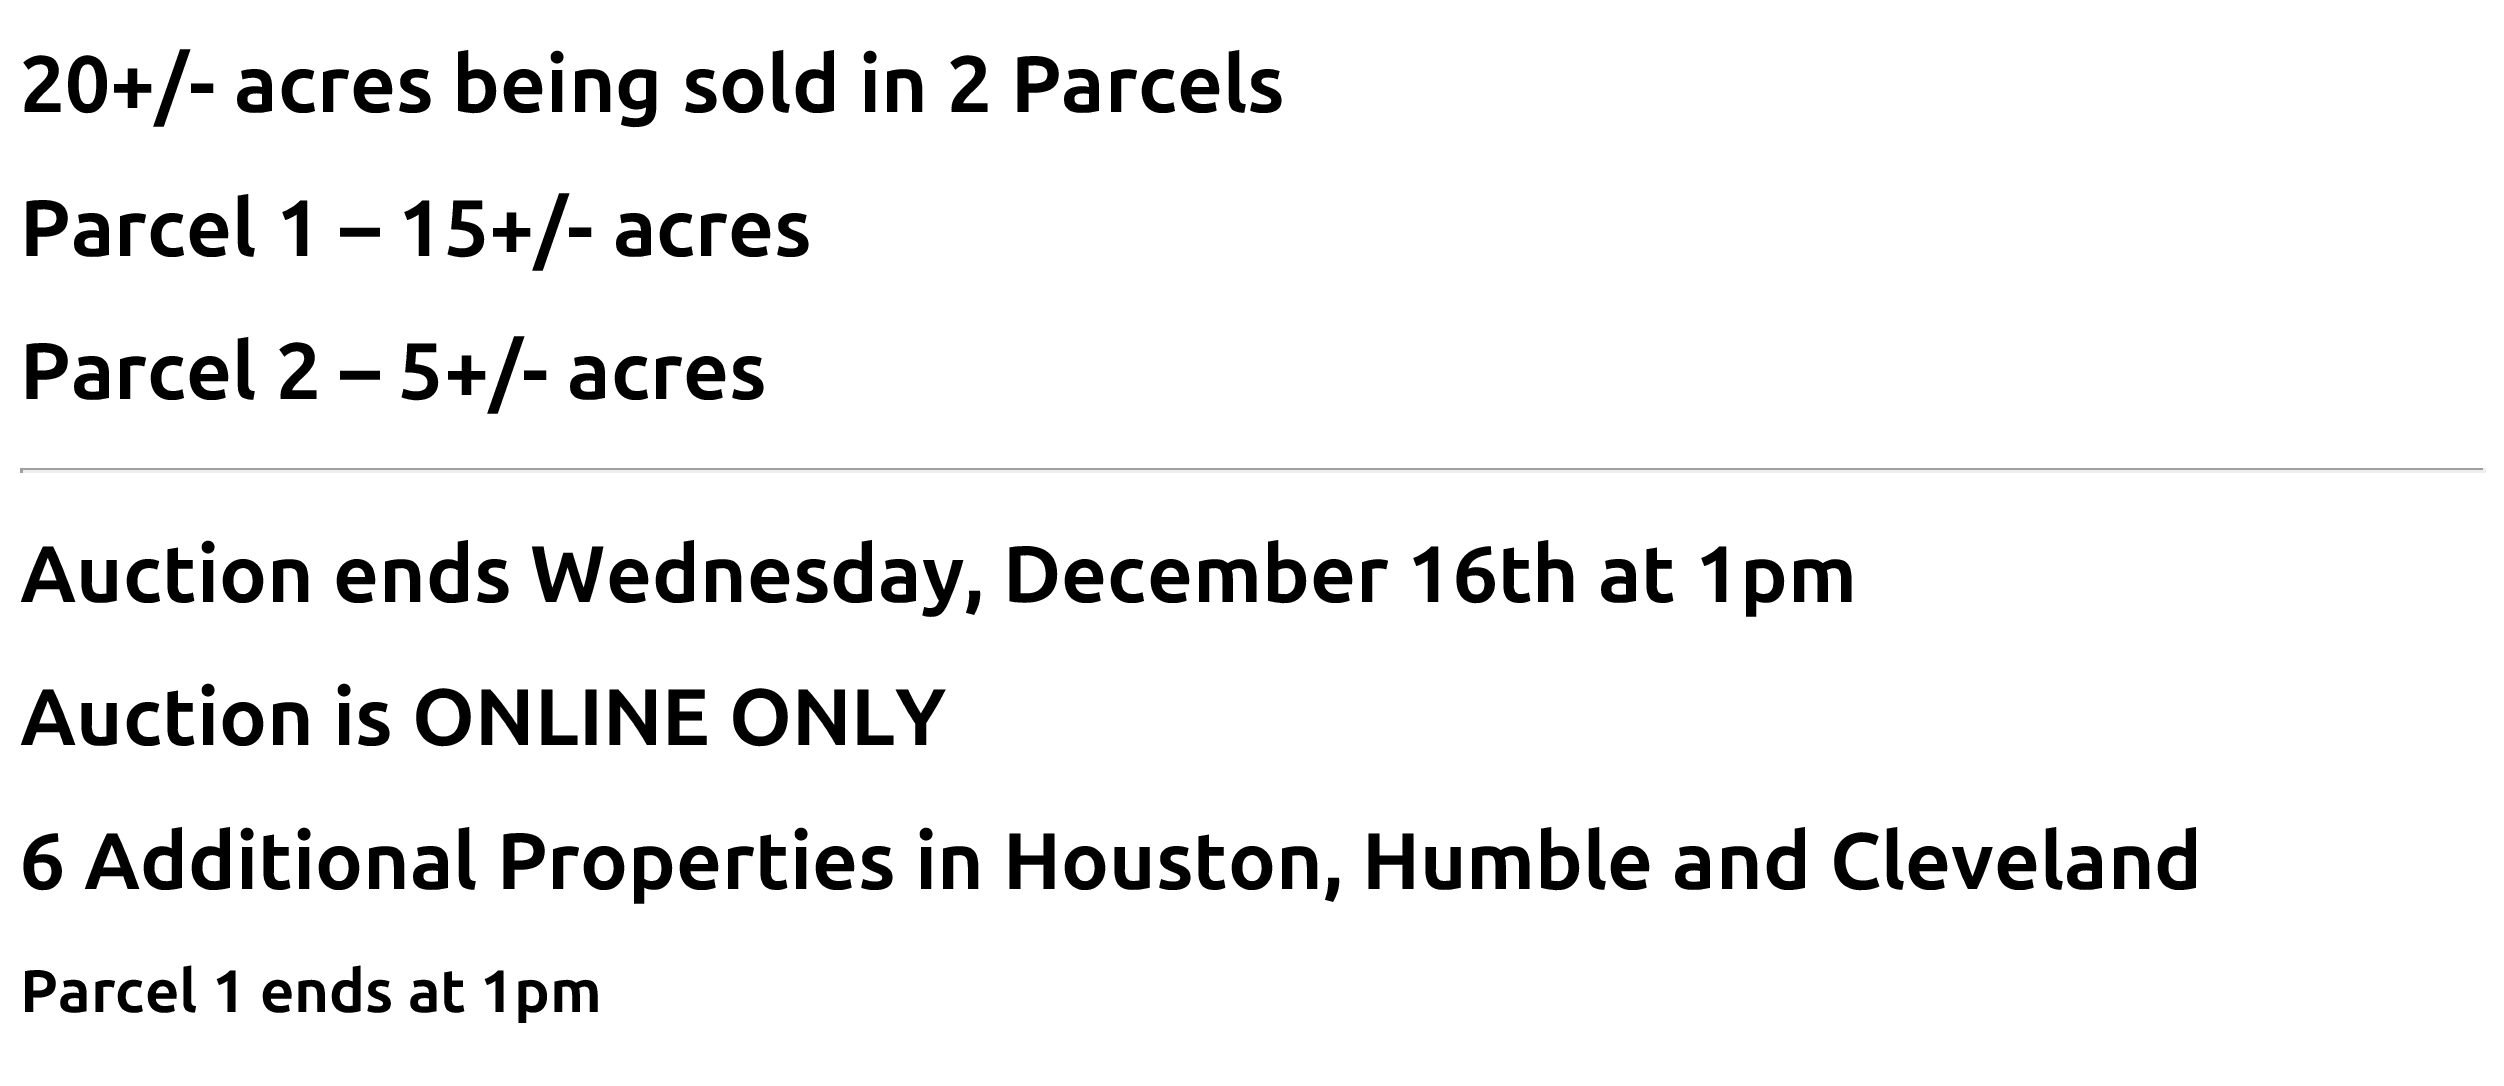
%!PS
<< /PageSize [2504 1086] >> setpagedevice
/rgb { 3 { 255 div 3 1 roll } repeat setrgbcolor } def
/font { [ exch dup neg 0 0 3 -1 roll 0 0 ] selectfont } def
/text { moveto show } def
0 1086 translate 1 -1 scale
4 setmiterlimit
255 255 255 rgb
0 0 2504 1086 rectfill
159 159 159 rgb
20 468 2465 2 rectfill
238 238 238 rgb
2483 468 3 5 rectfill
20 470 2465 3 rectfill
159 159 159 rgb
20 468 3 5 rectfill
/Ubuntu-Bold 80 font
0 0 0 rgb
(20+/- acres being sold in 2 Parcels) 20 112 text
(Parcel 1 – 15+/- acres) 20 256 text
(Parcel 2 – 5+/- acres) 20 399 text
(Auction ends Wednesday, December 16th at 1pm) 20 602 text
(Auction is ONLINE ONLY) 20 745 text
(6 Additional Properties in Houston, Humble and Cleveland) 20 889 text
/Ubuntu-Bold 60 font
(Parcel 1 ends at 1pm) 20 1012 text
showpage
